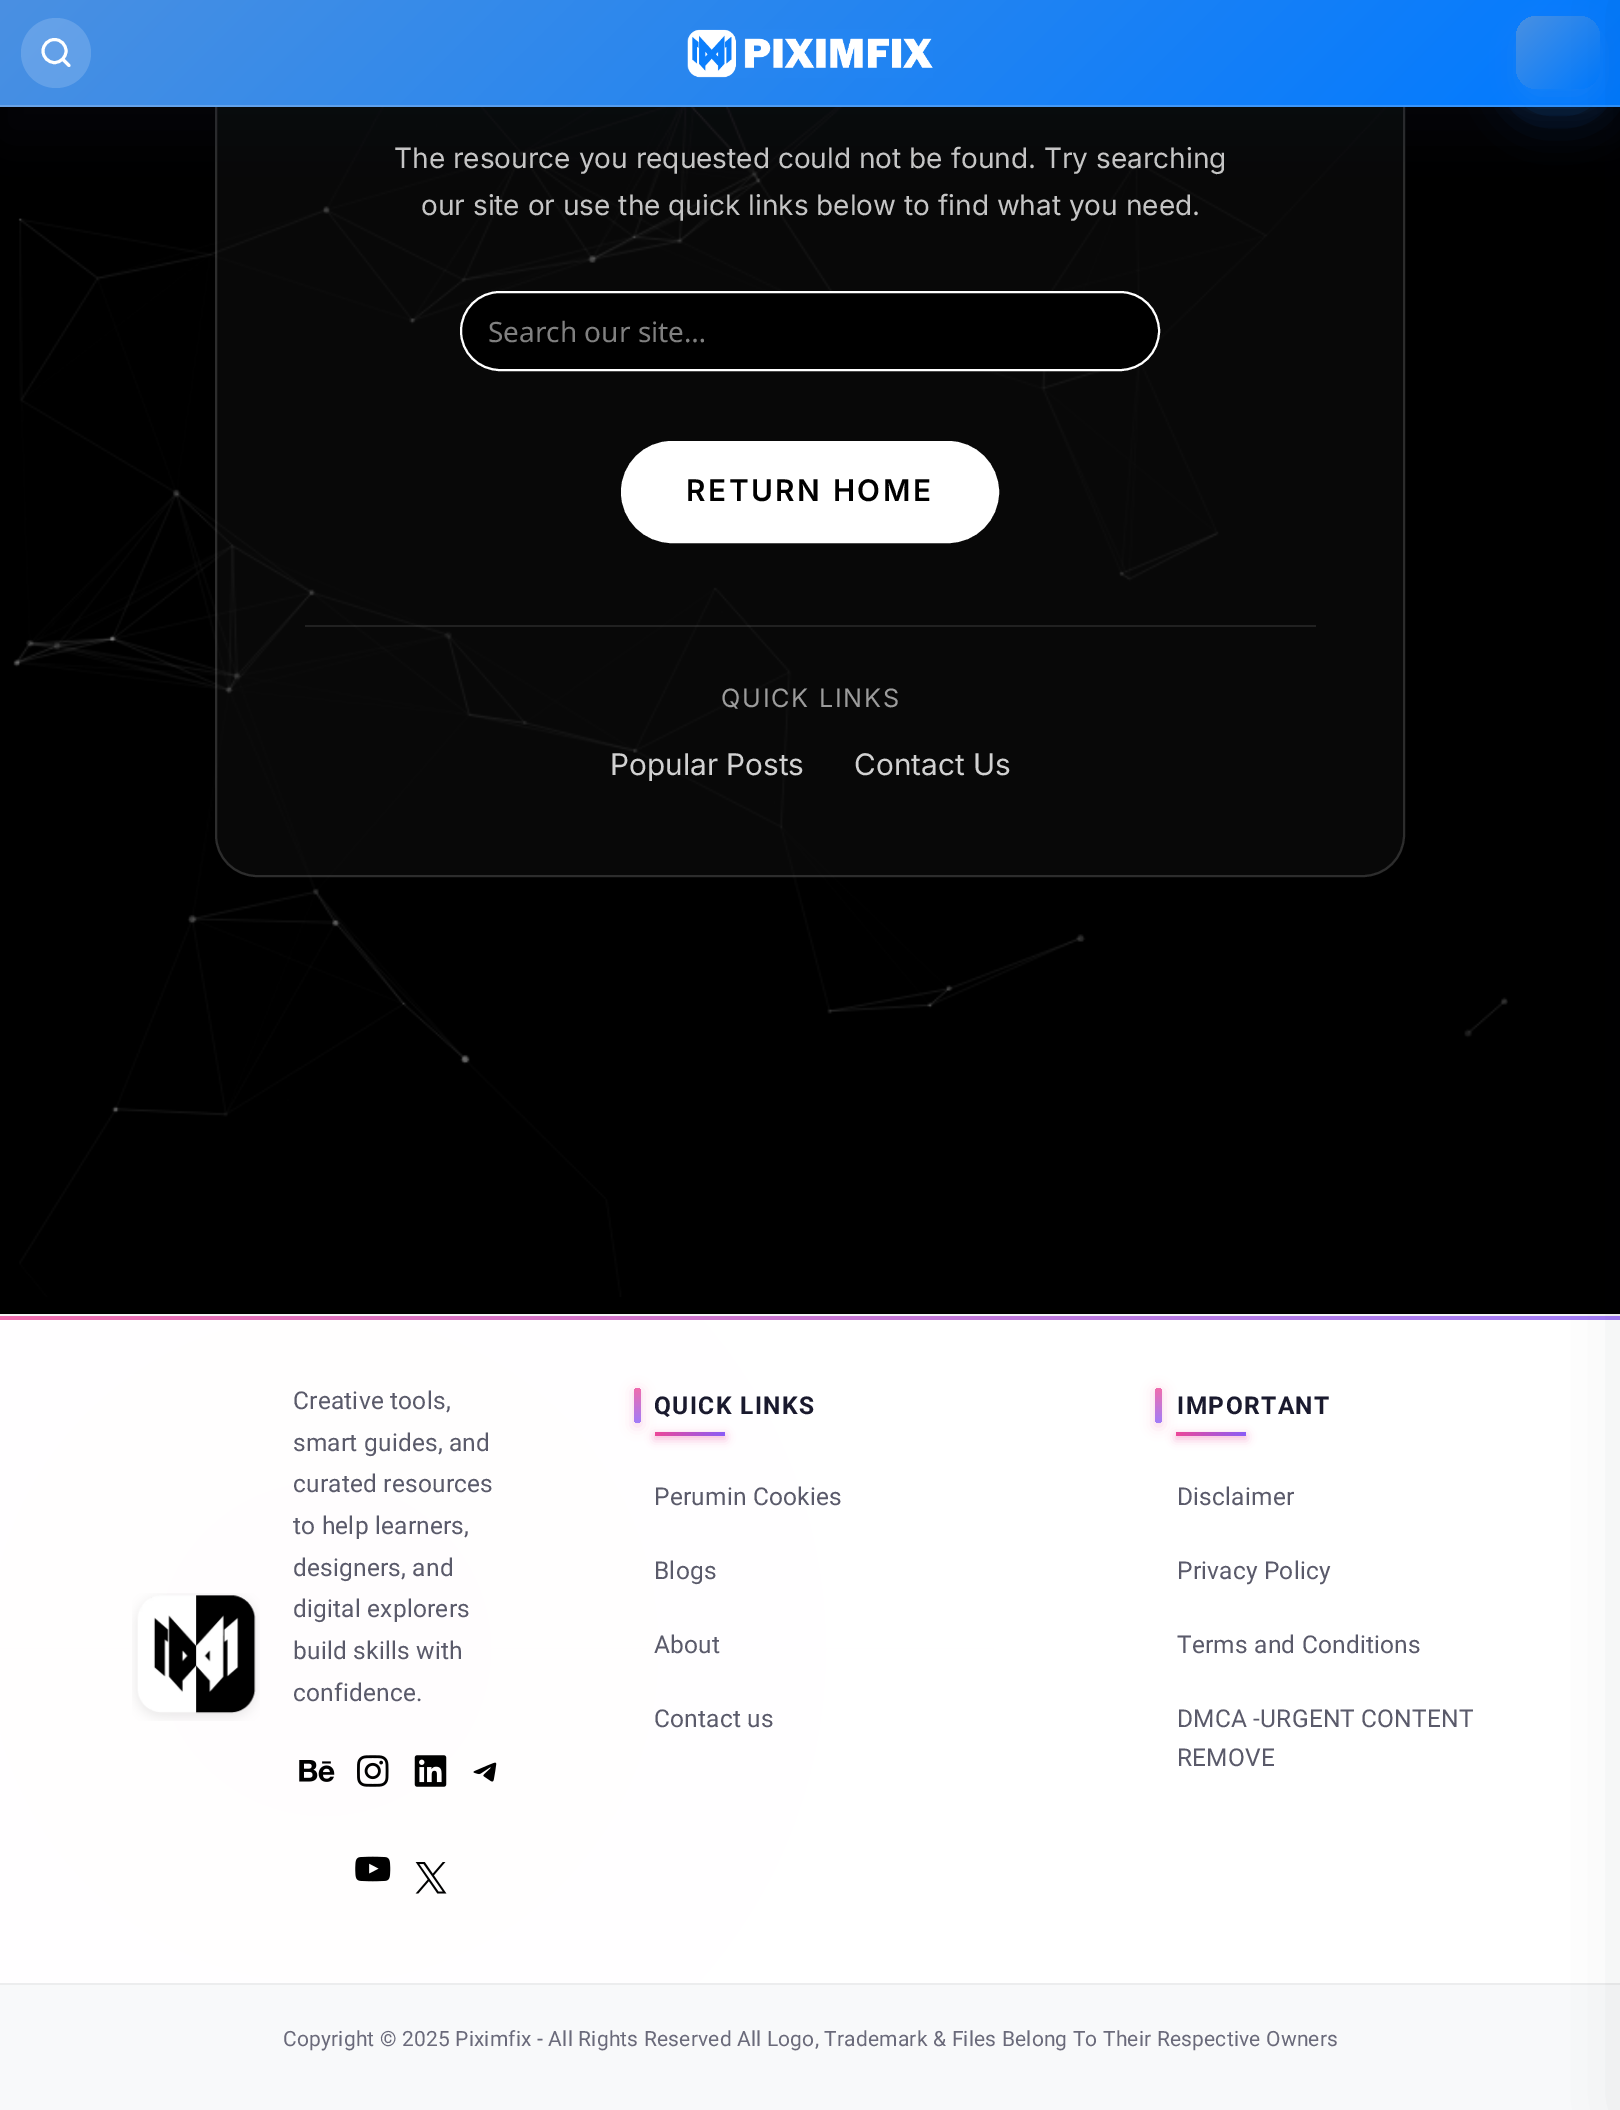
%!PS
<< /PageSize [1620 2110] /PageUsesTransparency true >> setpagedevice
/rgb { 3 { 255 div 3 1 roll } repeat setrgbcolor } def
/font { [ exch dup neg 0 0 3 -1 roll 0 0 ] selectfont } def
/text { moveto show } def
/alpha { dup .setfillconstantalpha .setstrokeconstantalpha } def
/circle { newpath 0 360 arc closepath } def
/roundrect { 5 dict begin { /r /h /w /y /x } { exch def } forall
  x r add y moveto x w add y 2 copy h add r arct x w add y h add x 1 index r arct
  x y h add x y r arct x y 2 copy exch w add exch r arct closepath end } def
/shadow { 12 dict begin { /a /b /q /h /w /y /x } { exch def } forall gsave /was 0 def
  9 -2 -9 { dup b mul 4 div /e exch def 1 sub .425 mul 2.718 exch exp 1 add a .99 .min exch div /now exch def
    1 1 now sub 1 was sub div sub alpha /was now def
    w h .min e 2 mul add 0 gt { x e sub y e sub w e 2 mul add h e 2 mul add
      q e add b .6 mul add w h .min 2 div e add .min 0 .max roundrect fill } if } for grestore end } def
/picture { 5 dict begin { /h /w /y /x /name } { exch def } forall
  gsave x y translate w h scale
  w h 8 [w 0 0 h 0 0] name (r) file false 3 colorimage grestore end } def
0 .pushpdf14devicefilter
0 2110 translate 1 -1 scale
4 setmiterlimit
0 0 0 rgb
0 0 1620 2110 rectfill
(img_02.rgb) 13 107 1495 1190 picture
gsave
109 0 moveto 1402 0 rlineto 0 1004 rlineto -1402 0 rlineto closepath 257 -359 moveto 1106 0 rlineto 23 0 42 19 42 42 rcurveto 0 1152 rlineto 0 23 -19 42 -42 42 rcurveto -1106 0 rlineto -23 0 -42 -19 -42 -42 rcurveto 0 -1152 rlineto 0 -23 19 -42 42 -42 rcurveto closepath eoclip newpath
215 -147 1190 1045 42 35 0.4 shadow
grestore
0.4 alpha
20 20 20 rgb
215 -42 1190 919 42 roundrect fill
0.15 alpha
255 255 255 rgb
2 setlinewidth
216 -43 1188 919 41 roundrect stroke
1 alpha
15 23 36 rgb
0 32 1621 106 0 31.5 0.24 shadow
gsave 0 0 moveto 1620 0 rlineto 0 105 rlineto -1620 0 rlineto closepath clip newpath
<< /ShadingType 2 /ColorSpace /DeviceRGB /Coords [379 -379 1242 484] /Extend [true true] /Function << /FunctionType 2 /Domain [0 1] /C0 [0.29 0.565 0.886] /C1 [0 0.478 1] /N 1 >> >> shfill grestore
gsave 0 105 moveto 1620 0 rlineto 0 2 rlineto -1620 0 rlineto closepath clip newpath
<< /ShadingType 2 /ColorSpace /DeviceRGB /Coords [379 -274 1242 589] /Extend [true true] /Function << /FunctionType 2 /Domain [0 1] /C0 [0.29 0.565 0.886] /C1 [0 0.478 1] /N 1 >> >> shfill grestore
0.18 alpha
255 255 255 rgb
0 105 1620 2 rectfill
1 alpha
74 144 226 rgb
1516 26 84 74 21 12 0.25 shadow
0 122 255 rgb
1516 37 84 73 21 24.5 0.3 shadow
gsave 1516 16 84 73 21 roundrect clip newpath
<< /ShadingType 2 /ColorSpace /DeviceRGB /Coords [1518 13 1597 92] /Extend [true true] /Function << /FunctionType 2 /Domain [0 1] /C0 [0.29 0.565 0.886] /C1 [0 0.478 1] /N 1 >> >> shfill grestore
0.16 alpha
255 255 255 rgb
56 53 35 circle fill
1 alpha
2.9 setlinewidth
54.5 51 11.5 circle stroke
1 setlinecap
1 setlinejoin
69 65.5 moveto -6 -6 rlineto stroke
(img_01.rgb) 687 29 246 49 picture
242 242 242 rgb
0 1314 1620 2 rectfill
gsave 0 1316 moveto 1620 0 rlineto 0 4 rlineto -1620 0 rlineto closepath clip newpath
<< /ShadingType 2 /ColorSpace /DeviceRGB /Coords [0 1318 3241 1318] /Extend [true true] /Function << /FunctionType 3 /Domain [0 1] /Functions [<< /FunctionType 2 /Domain [0 1] /C0 [0.941 0.427 0.678] /C1 [0.635 0.49 0.973] /N 1 >> << /FunctionType 2 /Domain [0 1] /C0 [0.635 0.49 0.973] /C1 [0.941 0.427 0.678] /N 1 >>] /Bounds [0.5] /Encode [0 1 0 1] >> >> shfill grestore
gsave 0 1320 moveto 1620 0 rlineto 0 663 rlineto -1620 0 rlineto closepath clip newpath 324 1649 translate 1339 1339 scale
<< /ShadingType 3 /ColorSpace /DeviceRGB /Coords [0 0 0 0 0 1] /Extend [true true] /Function << /FunctionType 3 /Domain [0 1] /Functions [<< /FunctionType 2 /Domain [0 1] /C0 [1 0.992 0.996] /C1 [1 1 1] /N 1 >> << /FunctionType 2 /Domain [0 1] /C0 [1 1 1] /C1 [1 1 1] /N 1 >>] /Bounds [0.5] /Encode [0 1 0 1] >> >> shfill grestore
248 249 250 rgb
0 1985 1620 125 rectfill
236 237 238 rgb
0 1983 1620 2 rectfill
15 23 36 rgb
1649 0 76 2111 0 35 0.24 shadow
0 0 0 rgb
461 292 698 78 39 roundrect gsave fill grestore
255 255 255 rgb
2 setlinewidth
0 setlinecap
0 setlinejoin
stroke
623 443 374 98 49 roundrect gsave fill grestore
4 setlinewidth
stroke
0.1 alpha
305 625 1011 2 rectfill
1 alpha
(img_03.rgb) 132 1593 128 128 picture
(img_04.rgb) 299 1760 36 22 picture
(img_05.rgb) 357 1755 32 32 picture
(img_06.rgb) 414 1755 33 32 picture
(img_07.rgb) 473 1762 24 20 picture
(img_08.rgb) 355 1856 36 26 picture
(img_09.rgb) 415 1862 32 32 picture
236 72 153 rgb
634 1391 7 35 3.5 7 0.24 shadow
gsave 634 1388 7 35 3.5 roundrect clip newpath
<< /ShadingType 2 /ColorSpace /DeviceRGB /Coords [637 1388 637 1423] /Extend [true true] /Function << /FunctionType 2 /Domain [0 1] /C0 [0.941 0.424 0.678] /C1 [0.635 0.486 0.973] /N 1 >> >> shfill grestore
655 1435 70 4 2 5 0.4 shadow
gsave 655 1432 70 4 2 roundrect clip newpath
<< /ShadingType 2 /ColorSpace /DeviceRGB /Coords [655 1433 725 1433] /Extend [true true] /Function << /FunctionType 2 /Domain [0 1] /C0 [0.925 0.282 0.6] /C1 [0.545 0.361 0.965] /N 1 >> >> shfill grestore
240 109 173 rgb
1155 1391 7 35 3.5 7 0.3 shadow
gsave 1155 1388 7 35 3.5 roundrect clip newpath
<< /ShadingType 2 /ColorSpace /DeviceRGB /Coords [1159 1388 1159 1423] /Extend [true true] /Function << /FunctionType 2 /Domain [0 1] /C0 [0.941 0.427 0.678] /C1 [0.635 0.49 0.973] /N 1 >> >> shfill grestore
236 72 153 rgb
1176 1435 70 4 2 5 0.4 shadow
gsave 1176 1432 70 4 2 roundrect clip newpath
<< /ShadingType 2 /ColorSpace /DeviceRGB /Coords [1176 1433 1246 1433] /Extend [true true] /Function << /FunctionType 2 /Domain [0 1] /C0 [0.925 0.282 0.6] /C1 [0.545 0.361 0.965] /N 1 >> >> shfill grestore
/Inter-Regular 28 font
197 197 197 rgb
(The resource you requested could not be found. Try searching) 394 168 text
(our site or use the quick links below to find what you need.) 421 215 text
/NotoSans-Regular 28 font
128 128 128 rgb
(Search our site…) 488 342 text
/Inter-SemiBold 29.75 font
0 0 0 rgb
686 501 moveto 2.6 0 (RETURN HOME) ashow
/Inter-Regular 25.25 font
156 156 156 rgb
721 707 moveto 1.75 0 (QUICK LINKS) ashow
/Inter-Regular 29.75 font
209 209 209 rgb
(Popular Posts) 610 775 text
(Contact Us) 854 775 text
/Roboto-Regular 24.5 font
90 90 106 rgb
293 1409 moveto 0.18 0 (Creative tools,) ashow
293 1451 moveto 0.18 0 (smart guides, and) ashow
293 1492 moveto 0.18 0 (curated resources) ashow
293 1534 moveto 0.18 0 (to help learners,) ashow
293 1576 moveto 0.18 0 (designers, and) ashow
293 1617 moveto 0.18 0 (digital explorers) ashow
293 1659 moveto 0.18 0 (build skills with) ashow
293 1701 moveto 0.18 0 (confidence.) ashow
/Roboto-Bold 24.5 font
26 26 46 rgb
654 1414 moveto 1.4 0 (QUICK LINKS) ashow
/Roboto-Regular 24.5 font
90 90 106 rgb
654 1505 moveto 0.18 0 (Perumin Cookies) ashow
654 1579 moveto 0.18 0 (Blogs) ashow
654 1653 moveto 0.18 0 (About) ashow
654 1727 moveto 0.18 0 (Contact us) ashow
/Roboto-Bold 24.5 font
26 26 46 rgb
1177 1414 moveto 1.4 0 (IMPORTANT) ashow
/Roboto-Regular 24.5 font
90 90 106 rgb
1177 1505 moveto 0.18 0 (Disclaimer) ashow
1177 1579 moveto 0.18 0 (Privacy Policy) ashow
1177 1653 moveto 0.18 0 (Terms and Conditions) ashow
1177 1727 moveto 0.18 0 (DMCA -URGENT CONTENT) ashow
1177 1766 moveto 0.18 0 (REMOVE) ashow
/Roboto-Regular 21 font
106 106 122 rgb
283 2046 moveto 0.18 0 (Copyright © 2025 Piximfix - All Rights Reserved All Logo, Trademark & Files Belong To Their Respective Owners) ashow
.poppdf14devicefilter showpage
